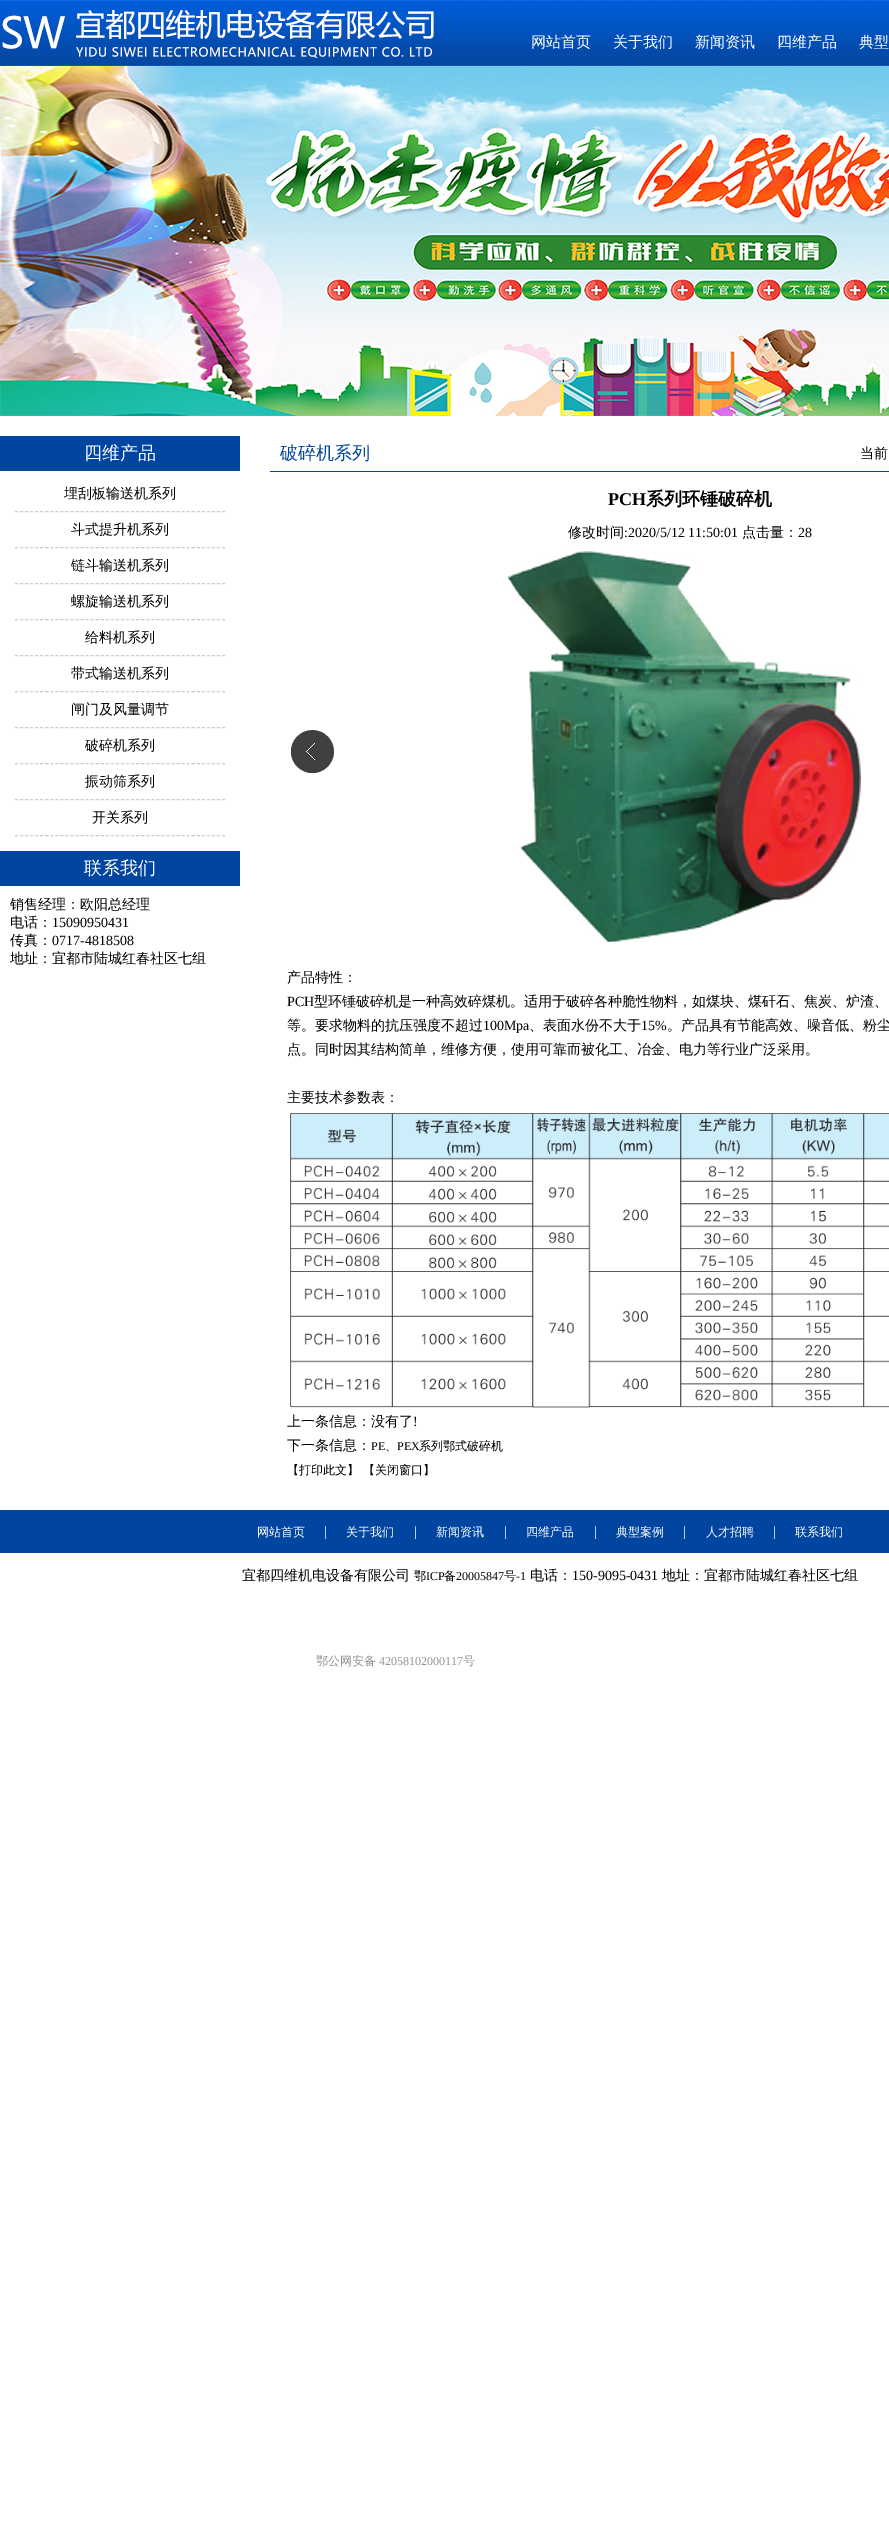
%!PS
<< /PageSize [889 2535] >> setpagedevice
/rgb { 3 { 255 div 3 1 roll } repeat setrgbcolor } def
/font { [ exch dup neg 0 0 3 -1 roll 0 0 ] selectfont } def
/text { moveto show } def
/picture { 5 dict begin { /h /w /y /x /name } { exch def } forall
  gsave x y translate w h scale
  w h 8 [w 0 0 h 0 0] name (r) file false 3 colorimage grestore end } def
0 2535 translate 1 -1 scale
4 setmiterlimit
255 255 255 rgb
0 0 889 2535 rectfill
(img_01.rgb) 0 0 889 66 picture
(img_02.rgb) 1 0 439 66 picture
(img_03.rgb) 0 66 889 350 picture
0 69 160 rgb
0 436 240 35 rectfill
204 204 204 rgb
[3 2.05] 0 setdash
15 511.5 moveto 210 0 rlineto stroke
15 547.5 moveto 210 0 rlineto stroke
15 583.5 moveto 210 0 rlineto stroke
15 619.5 moveto 210 0 rlineto stroke
15 655.5 moveto 210 0 rlineto stroke
15 691.5 moveto 210 0 rlineto stroke
15 727.5 moveto 210 0 rlineto stroke
15 763.5 moveto 210 0 rlineto stroke
15 799.5 moveto 210 0 rlineto stroke
15 835.5 moveto 210 0 rlineto stroke
0 69 160 rgb
0 851 240 35 rectfill
270 471 619 1 rectfill
(img_04.rgb) 291 730 43 43 picture
(img_05.rgb) 508 551 353 391 picture
(img_06.rgb) 290 1113 599 295 picture
0 1510 889 43 rectfill
/WenQuanYiZenHei-Medium 15 font
255 255 255 rgb
(网站首页) 531 47 text
(关于我们) 613 47 text
(新闻资讯) 695 47 text
(四维产品) 777 47 text
(典型) 859 47 text
/WenQuanYiZenHei-Medium 18 font
(四维产品) 84 459 text
/WenQuanYiZenHei-Medium 14 font
0 0 0 rgb
(埋刮板输送机系列) 64 498 text
(斗式提升机系列) 71 534 text
(链斗输送机系列) 71 570 text
(螺旋输送机系列) 71 606 text
(给料机系列) 85 642 text
(带式输送机系列) 71 678 text
(闸门及风量调节) 71 714 text
(破碎机系列) 85 750 text
(振动筛系列) 85 786 text
(开关系列) 92 822 text
/WenQuanYiZenHei-Medium 18 font
255 255 255 rgb
(联系我们) 84 874 text
/WenQuanYiZenHei-Medium 14 font
0 0 0 rgb
(销售经理：欧阳总经理) 10 909 text
(电话：) 10 927 text
/LiberationSerif-Regular 14 font
(15090950431) 52 927 text
/WenQuanYiZenHei-Medium 14 font
(传真：) 10 945 text
/LiberationSerif-Regular 14 font
(0717-4818508) 52 945 text
/WenQuanYiZenHei-Medium 14 font
(地址：宜都市陆城红春社区七组) 10 963 text
/WenQuanYiZenHei-Medium 18 font
0 69 160 rgb
(破碎机系列) 280 459 text
/WenQuanYiZenHei-Medium 14 font
0 0 0 rgb
(当前) 860 458 text
/LiberationSerif-Bold 18 font
(PCH) 608 505 text
/WenQuanYiZenHei-Bold 18 font
(系列环锤破碎机) 646 505 text
/WenQuanYiZenHei-Medium 14 font
(修改时间) 568 537 text
/LiberationSerif-Regular 14 font
(:2020/5/12 11:50:01) 624 537 text
/WenQuanYiZenHei-Medium 14 font
(点击量：) 742 537 text
/LiberationSerif-Regular 14 font
(28) 798 537 text
/WenQuanYiZenHei-Medium 14 font
(产品特性：) 287 982 text
/LiberationSerif-Regular 14 font
(PCH) 287 1006 text
/WenQuanYiZenHei-Medium 14 font
(型环锤破碎机是一种高效碎煤机。适用于破碎各种脆性物料，如煤块、煤矸石、焦炭、炉渣、) 314 1006 text
(等。要求物料的抗压强度不超过) 287 1030 text
/LiberationSerif-Regular 14 font
(100Mpa) 483 1030 text
/WenQuanYiZenHei-Medium 14 font
(、表面水份不大于) 529 1030 text
/LiberationSerif-Regular 14 font
(15%) 641 1030 text
/WenQuanYiZenHei-Medium 14 font
(。产品具有节能高效、噪音低、粉尘) 667 1030 text
(点。同时因其结构简单，维修方便，使用可靠而被化工、冶金、电力等行业广泛采用。) 287 1054 text
(主要技术参数表：) 287 1102 text
(上一条信息：没有了) 287 1426 text
/LiberationSerif-Regular 14 font
(!) 413 1426 text
/WenQuanYiZenHei-Medium 14 font
(下一条信息：) 287 1450 text
/LiberationSerif-Regular 12 font
(PE) 371 1450 text
(PEX) 397 1450 text
/WenQuanYiZenHei-Medium 12 font
(系列鄂式破碎机) 419 1450 text
(、) 385 1450 text
(【打印此文】 【关闭窗口】) 287 1474 text
255 255 255 rgb
(网站首页) 257 1536 text
/LiberationSerif-Regular 14 font
(|) 324 1536 text
/WenQuanYiZenHei-Medium 12 font
(关于我们) 346 1536 text
/LiberationSerif-Regular 14 font
(|) 414 1536 text
/WenQuanYiZenHei-Medium 12 font
(新闻资讯) 436 1536 text
/LiberationSerif-Regular 14 font
(|) 504 1536 text
/WenQuanYiZenHei-Medium 12 font
(四维产品) 526 1536 text
/LiberationSerif-Regular 14 font
(|) 594 1536 text
/WenQuanYiZenHei-Medium 12 font
(典型案例) 616 1536 text
/LiberationSerif-Regular 14 font
(|) 683 1536 text
/WenQuanYiZenHei-Medium 12 font
(人才招聘) 706 1536 text
/LiberationSerif-Regular 14 font
(|) 773 1536 text
/WenQuanYiZenHei-Medium 12 font
(联系我们) 795 1536 text
/WenQuanYiZenHei-Medium 14 font
0 0 0 rgb
(宜都四维机电设备有限公司) 242 1580 text
/WenQuanYiZenHei-Medium 12 font
(鄂) 414 1580 text
/LiberationSerif-Regular 12 font
(ICP) 426 1580 text
/WenQuanYiZenHei-Medium 12 font
(备) 444 1580 text
/LiberationSerif-Regular 12 font
(20005847) 456 1580 text
/WenQuanYiZenHei-Medium 12 font
(号) 504 1580 text
/LiberationSerif-Regular 12 font
(-1) 516 1580 text
/WenQuanYiZenHei-Medium 14 font
(电话：) 530 1580 text
/LiberationSerif-Regular 14 font
(150-9095-0431) 572 1580 text
/WenQuanYiZenHei-Medium 14 font
(地址：宜都市陆城红春社区七组) 662 1580 text
/WenQuanYiZenHei-Medium 12 font
147 147 147 rgb
(鄂公网安备) 316 1665 text
/LiberationSerif-Regular 12 font
(42058102000117) 379 1665 text
/WenQuanYiZenHei-Medium 12 font
(号) 463 1665 text
showpage
